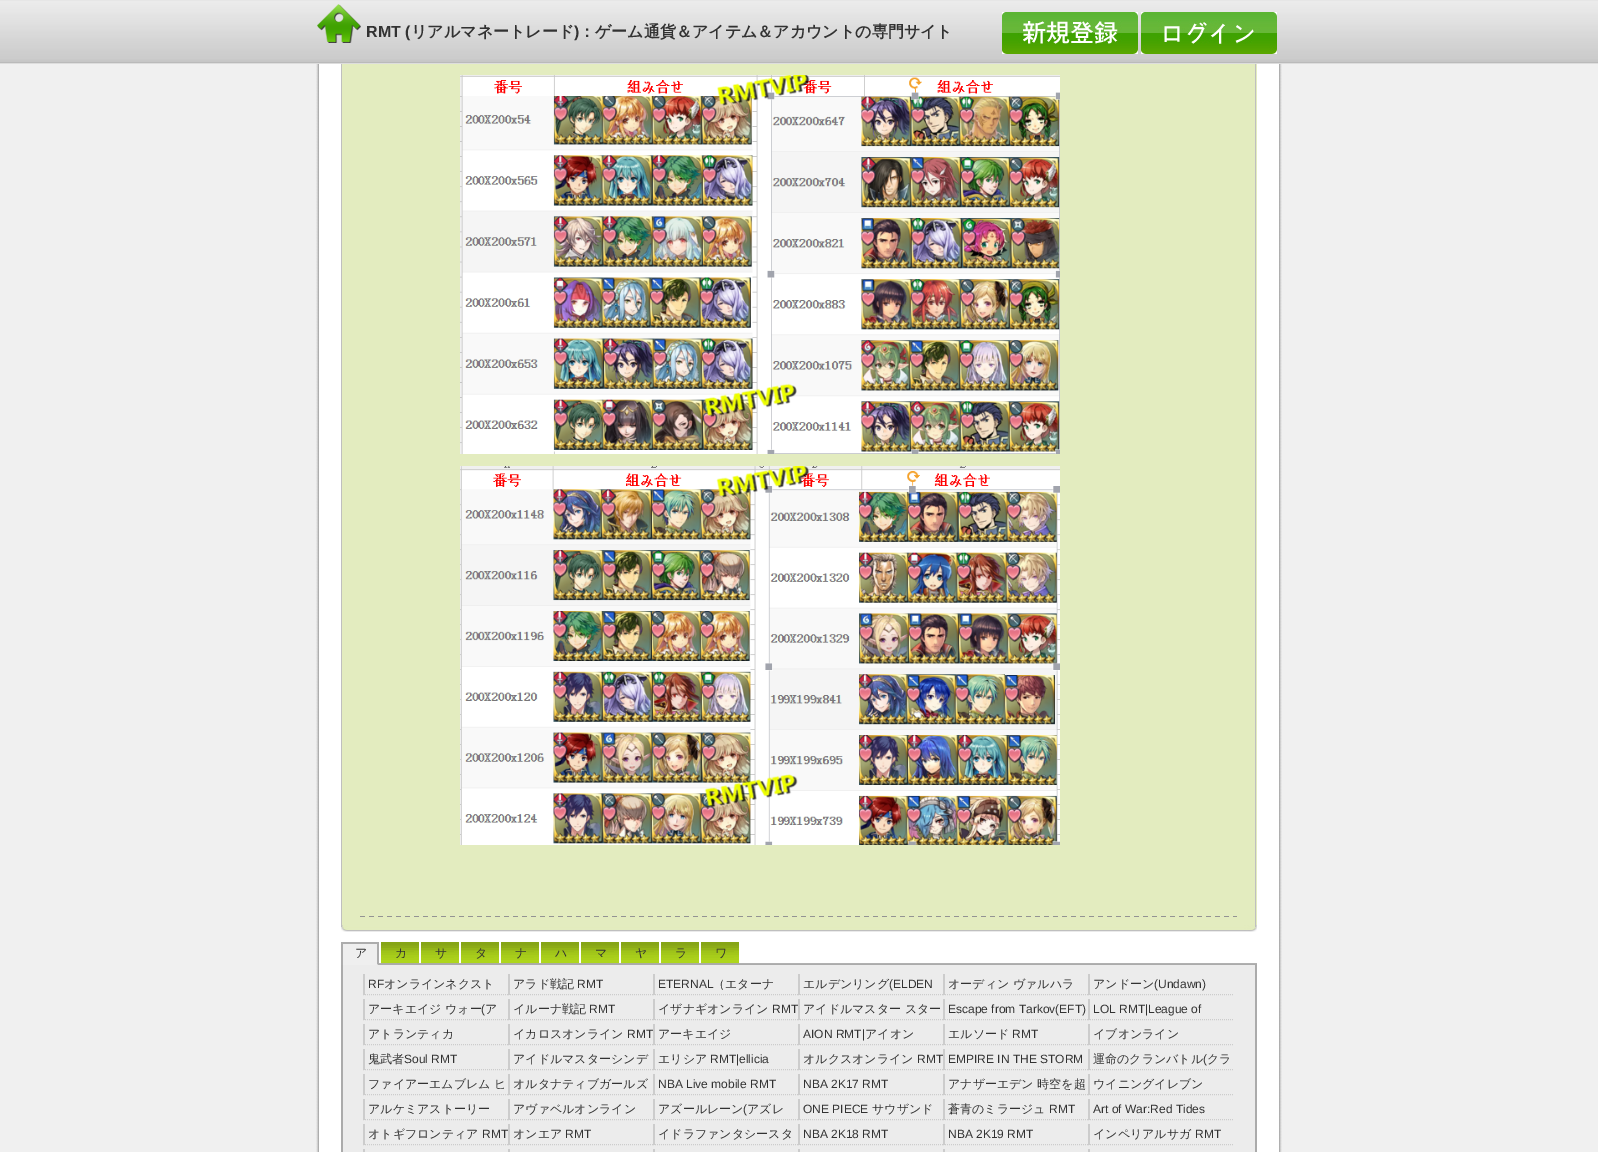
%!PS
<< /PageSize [1598 1152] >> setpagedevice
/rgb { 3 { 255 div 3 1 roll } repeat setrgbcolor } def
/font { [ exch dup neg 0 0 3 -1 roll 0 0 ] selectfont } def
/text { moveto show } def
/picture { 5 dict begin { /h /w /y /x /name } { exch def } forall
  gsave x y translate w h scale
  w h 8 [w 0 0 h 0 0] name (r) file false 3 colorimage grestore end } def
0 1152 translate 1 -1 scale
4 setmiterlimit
240 240 240 rgb
0 0 1598 1152 rectfill
(img_01.rgb) 316 64 966 1088 picture
(img_02.rgb) 0 0 1598 64 picture
(img_03.rgb) 317 4 44 39 picture
(img_04.rgb) 1002 12 136 42 picture
(img_05.rgb) 1141 12 136 42 picture
227 236 191 rgb
342 64 915 861 rectfill
(img_06.rgb) 341 925 916 7 picture
191 191 191 rgb
1255 64 1 863 rectfill
341 64 1 863 rectfill
(img_07.rgb) 360 916 877 1 picture
(img_08.rgb) 460 75 600 379 picture
(img_09.rgb) 460 466 600 379 picture
(img_10.rgb) 379 942 878 23 picture
(img_11.rgb) 341 942 38 23 picture
(img_12.rgb) 381 942 38 22 picture
(img_12.rgb) 421 942 38 22 picture
(img_12.rgb) 461 942 38 22 picture
(img_12.rgb) 501 942 38 22 picture
(img_12.rgb) 541 942 38 22 picture
(img_12.rgb) 581 942 38 22 picture
(img_12.rgb) 621 942 38 22 picture
(img_12.rgb) 661 942 38 22 picture
(img_12.rgb) 701 942 38 22 picture
236 236 236 rgb
343 965 912 187 rectfill
171 171 171 rgb
1255 965 2 187 rectfill
341 965 2 187 rectfill
204 204 204 rgb
[1 1] 0 setdash
363 994.5 moveto 145 0 rlineto stroke
363 974 2 21 rectfill
508 994.5 moveto 145 0 rlineto stroke
508 974 2 21 rectfill
653 994.5 moveto 145 0 rlineto stroke
653 974 2 21 rectfill
798 994.5 moveto 145 0 rlineto stroke
798 974 2 21 rectfill
943 994.5 moveto 145 0 rlineto stroke
943 974 2 21 rectfill
1088 994.5 moveto 145 0 rlineto stroke
1088 974 2 21 rectfill
363 1019.5 moveto 145 0 rlineto stroke
363 999 2 21 rectfill
508 1019.5 moveto 145 0 rlineto stroke
508 999 2 21 rectfill
653 1019.5 moveto 145 0 rlineto stroke
653 999 2 21 rectfill
798 1019.5 moveto 145 0 rlineto stroke
798 999 2 21 rectfill
943 1019.5 moveto 145 0 rlineto stroke
943 999 2 21 rectfill
1088 1019.5 moveto 145 0 rlineto stroke
1088 999 2 21 rectfill
363 1044.5 moveto 145 0 rlineto stroke
363 1024 2 21 rectfill
508 1044.5 moveto 145 0 rlineto stroke
508 1024 2 21 rectfill
653 1044.5 moveto 145 0 rlineto stroke
653 1024 2 21 rectfill
798 1044.5 moveto 145 0 rlineto stroke
798 1024 2 21 rectfill
943 1044.5 moveto 145 0 rlineto stroke
943 1024 2 21 rectfill
1088 1044.5 moveto 145 0 rlineto stroke
1088 1024 2 21 rectfill
363 1069.5 moveto 145 0 rlineto stroke
363 1049 2 21 rectfill
508 1069.5 moveto 145 0 rlineto stroke
508 1049 2 21 rectfill
653 1069.5 moveto 145 0 rlineto stroke
653 1049 2 21 rectfill
798 1069.5 moveto 145 0 rlineto stroke
798 1049 2 21 rectfill
943 1069.5 moveto 145 0 rlineto stroke
943 1049 2 21 rectfill
1088 1069.5 moveto 145 0 rlineto stroke
1088 1049 2 21 rectfill
363 1094.5 moveto 145 0 rlineto stroke
363 1074 2 21 rectfill
508 1094.5 moveto 145 0 rlineto stroke
508 1074 2 21 rectfill
653 1094.5 moveto 145 0 rlineto stroke
653 1074 2 21 rectfill
798 1094.5 moveto 145 0 rlineto stroke
798 1074 2 21 rectfill
943 1094.5 moveto 145 0 rlineto stroke
943 1074 2 21 rectfill
1088 1094.5 moveto 145 0 rlineto stroke
1088 1074 2 21 rectfill
363 1119.5 moveto 145 0 rlineto stroke
363 1099 2 21 rectfill
508 1119.5 moveto 145 0 rlineto stroke
508 1099 2 21 rectfill
653 1119.5 moveto 145 0 rlineto stroke
653 1099 2 21 rectfill
798 1119.5 moveto 145 0 rlineto stroke
798 1099 2 21 rectfill
943 1119.5 moveto 145 0 rlineto stroke
943 1099 2 21 rectfill
1088 1119.5 moveto 145 0 rlineto stroke
1088 1099 2 21 rectfill
363 1144.5 moveto 145 0 rlineto stroke
363 1124 2 21 rectfill
508 1144.5 moveto 145 0 rlineto stroke
508 1124 2 21 rectfill
653 1144.5 moveto 145 0 rlineto stroke
653 1124 2 21 rectfill
798 1144.5 moveto 145 0 rlineto stroke
798 1124 2 21 rectfill
943 1144.5 moveto 145 0 rlineto stroke
943 1124 2 21 rectfill
1088 1144.5 moveto 145 0 rlineto stroke
1088 1124 2 21 rectfill
363 1149 2 3 rectfill
508 1149 2 3 rectfill
653 1149 2 3 rectfill
798 1149 2 3 rectfill
943 1149 2 3 rectfill
1088 1149 2 3 rectfill
/LiberationSans-Bold 16 font
50 50 50 rgb
(RMT \() 366 37 text
/WenQuanYiZenHei-Bold 16 font
(リアルマネートレード) 411 37 text
/LiberationSans-Bold 16 font
(\)) 574 37 text
/WenQuanYiZenHei-Bold 16 font
(：ゲーム通貨＆アイテム＆アカウントの専門サイト) 579 37 text
/WenQuanYiZenHei-Medium 12 font
(ア) 355 957 text
(カ) 395 957 text
(サ) 435 957 text
(タ) 475 957 text
(ナ) 515 957 text
(ハ) 555 957 text
(マ) 595 957 text
(ヤ) 635 957 text
(ラ) 675 957 text
(ワ) 715 957 text
/LiberationSans-Regular 12 font
(RF) 368 988 text
/WenQuanYiZenHei-Medium 12 font
(オンラインネクスト) 384 988 text
(アラド戦記) 513 988 text
/LiberationSans-Regular 12 font
(RMT) 577 988 text
(ETERNAL) 658 988 text
/WenQuanYiZenHei-Medium 12 font
(（エターナ) 713 988 text
(エルデンリング) 803 988 text
/LiberationSans-Regular 12 font
(\(ELDEN) 889 988 text
/WenQuanYiZenHei-Medium 12 font
(オーディン ヴァルハラ) 948 988 text
(アンドーン) 1093 988 text
/LiberationSans-Regular 12 font
(\(Undawn\)) 1154 988 text
/WenQuanYiZenHei-Medium 12 font
(アーキエイジ ウォー) 368 1013 text
/LiberationSans-Regular 12 font
(\() 481 1013 text
/WenQuanYiZenHei-Medium 12 font
(ア) 485 1013 text
(イルーナ戦記) 513 1013 text
/LiberationSans-Regular 12 font
(RMT) 589 1013 text
/WenQuanYiZenHei-Medium 12 font
(イザナギオンライン) 658 1013 text
/LiberationSans-Regular 12 font
(RMT) 772 1013 text
/WenQuanYiZenHei-Medium 12 font
(アイドルマスター スター) 803 1013 text
/LiberationSans-Regular 12 font
(Escape from Tarkov\(EFT\)) 948 1013 text
(LOL RMT|League of) 1093 1013 text
/WenQuanYiZenHei-Medium 12 font
(アトランティカ) 368 1038 text
(イカロスオンライン) 513 1038 text
/LiberationSans-Regular 12 font
(RMT) 627 1038 text
/WenQuanYiZenHei-Medium 12 font
(アーキエイジ) 658 1038 text
/LiberationSans-Regular 12 font
(AION RMT|) 803 1038 text
/WenQuanYiZenHei-Medium 12 font
(アイオン) 865 1038 text
(エルソード) 948 1038 text
/LiberationSans-Regular 12 font
(RMT) 1012 1038 text
/WenQuanYiZenHei-Medium 12 font
(イブオンライン) 1093 1038 text
(鬼武者) 368 1063 text
/LiberationSans-Regular 12 font
(Soul RMT) 404 1063 text
/WenQuanYiZenHei-Medium 12 font
(アイドルマスターシンデ) 513 1063 text
(エリシア) 658 1063 text
/LiberationSans-Regular 12 font
(RMT|ellicia) 710 1063 text
/WenQuanYiZenHei-Medium 12 font
(オルクスオンライン) 803 1063 text
/LiberationSans-Regular 12 font
(RMT) 917 1063 text
(EMPIRE IN THE STORM) 948 1063 text
/WenQuanYiZenHei-Medium 12 font
(運命のクランバトル) 1093 1063 text
/LiberationSans-Regular 12 font
(\() 1203 1063 text
/WenQuanYiZenHei-Medium 12 font
(クラ) 1207 1063 text
(ファイアーエムブレム ヒ) 368 1088 text
(オルタナティブガールズ) 513 1088 text
/LiberationSans-Regular 12 font
(NBA Live mobile RMT) 658 1088 text
(NBA 2K17 RMT) 803 1088 text
/WenQuanYiZenHei-Medium 12 font
(アナザーエデン 時空を超) 948 1088 text
(ウイニングイレブン) 1093 1088 text
(アルケミアストーリー) 368 1113 text
(アヴァベルオンライン) 513 1113 text
(アズールレーン) 658 1113 text
/LiberationSans-Regular 12 font
(\() 743 1113 text
/WenQuanYiZenHei-Medium 12 font
(アズレ) 747 1113 text
/LiberationSans-Regular 12 font
(ONE PIECE) 803 1113 text
/WenQuanYiZenHei-Medium 12 font
(サウザンド) 872 1113 text
(蒼青のミラージュ) 948 1113 text
/LiberationSans-Regular 12 font
(RMT) 1049 1113 text
(Art of War:Red Tides) 1093 1113 text
/WenQuanYiZenHei-Medium 12 font
(オトギフロンティア) 368 1138 text
/LiberationSans-Regular 12 font
(RMT) 482 1138 text
/WenQuanYiZenHei-Medium 12 font
(オンエア) 513 1138 text
/LiberationSans-Regular 12 font
(RMT) 565 1138 text
/WenQuanYiZenHei-Medium 12 font
(イドラファンタシースタ) 658 1138 text
/LiberationSans-Regular 12 font
(NBA 2K18 RMT) 803 1138 text
(NBA 2K19 RMT) 948 1138 text
/WenQuanYiZenHei-Medium 12 font
(インペリアルサガ) 1093 1138 text
/LiberationSans-Regular 12 font
(RMT) 1195 1138 text
showpage
